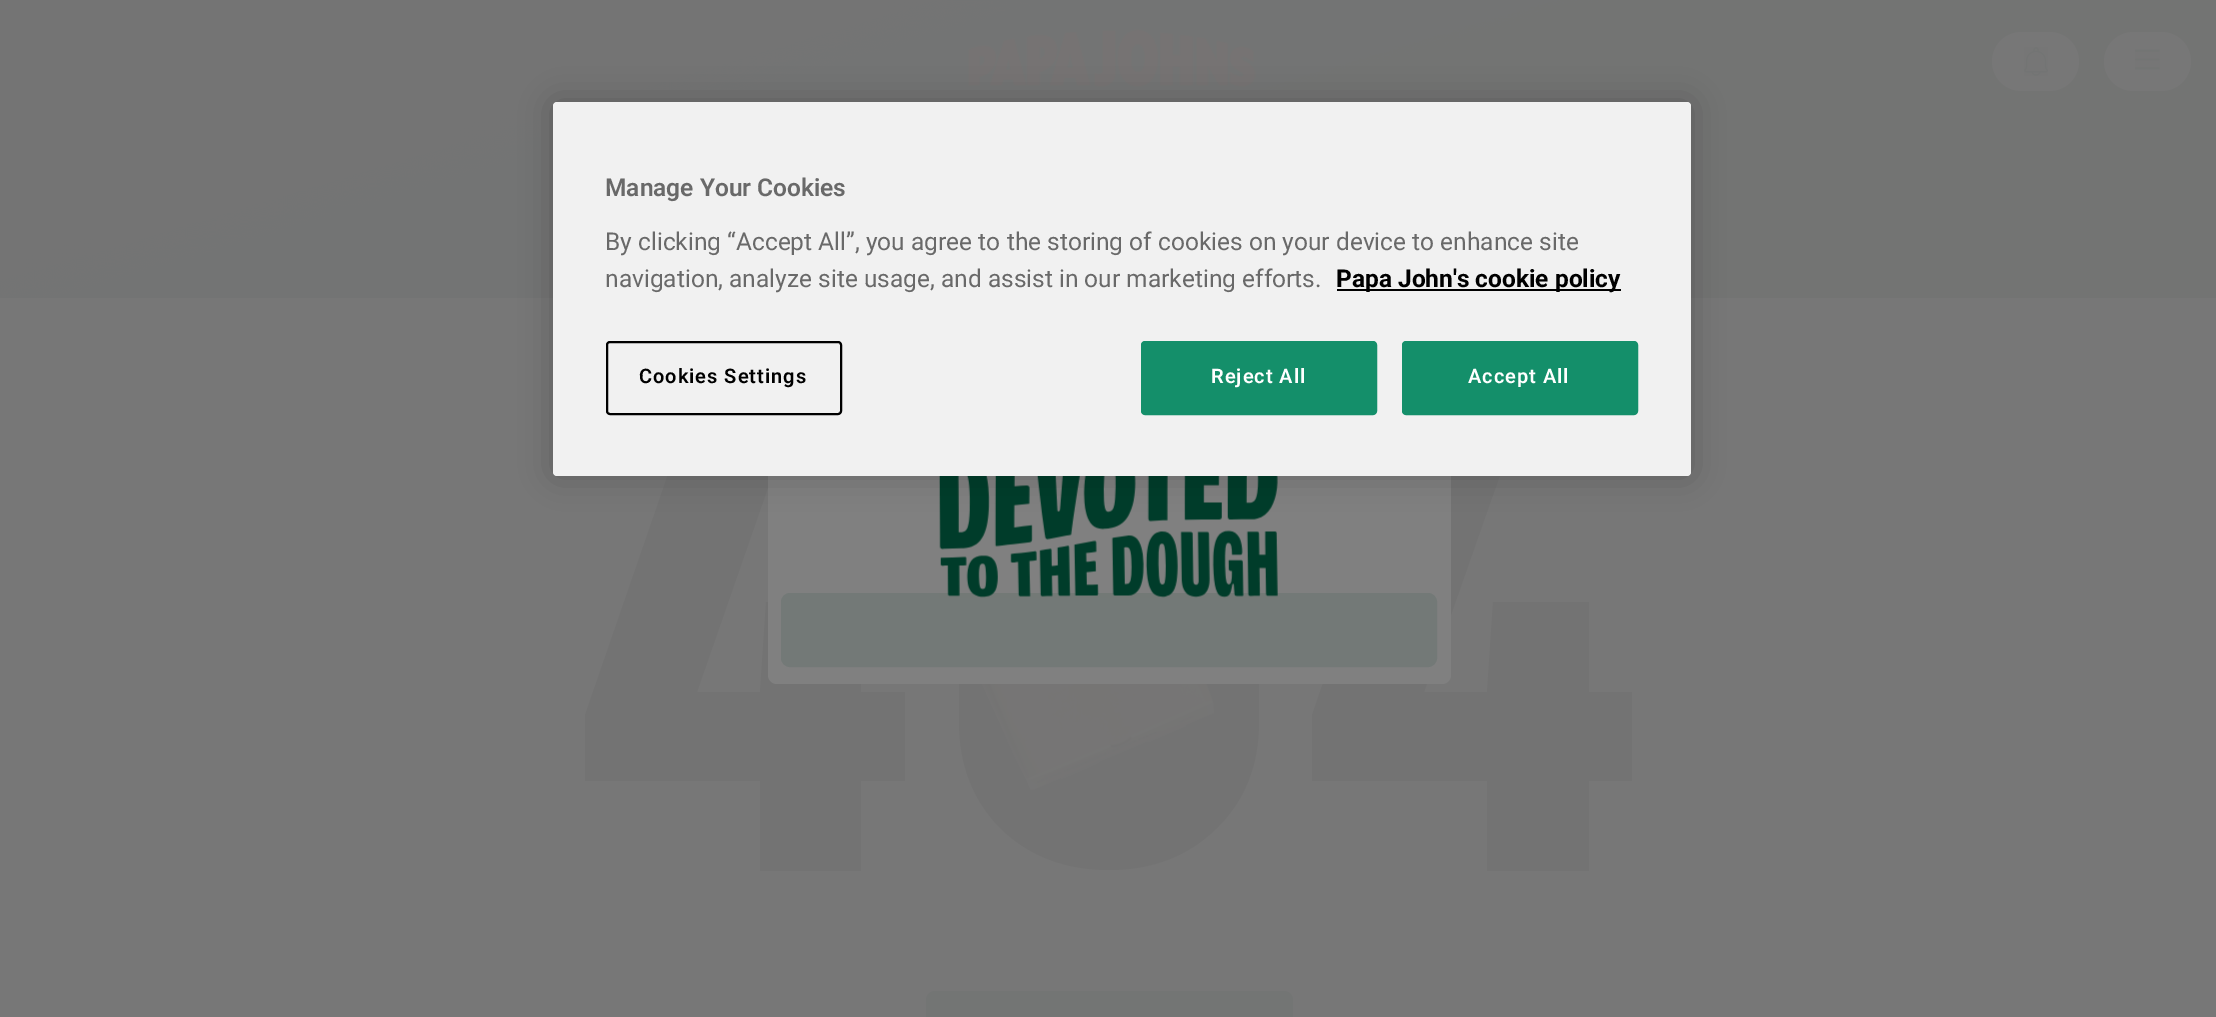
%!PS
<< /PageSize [2216 1017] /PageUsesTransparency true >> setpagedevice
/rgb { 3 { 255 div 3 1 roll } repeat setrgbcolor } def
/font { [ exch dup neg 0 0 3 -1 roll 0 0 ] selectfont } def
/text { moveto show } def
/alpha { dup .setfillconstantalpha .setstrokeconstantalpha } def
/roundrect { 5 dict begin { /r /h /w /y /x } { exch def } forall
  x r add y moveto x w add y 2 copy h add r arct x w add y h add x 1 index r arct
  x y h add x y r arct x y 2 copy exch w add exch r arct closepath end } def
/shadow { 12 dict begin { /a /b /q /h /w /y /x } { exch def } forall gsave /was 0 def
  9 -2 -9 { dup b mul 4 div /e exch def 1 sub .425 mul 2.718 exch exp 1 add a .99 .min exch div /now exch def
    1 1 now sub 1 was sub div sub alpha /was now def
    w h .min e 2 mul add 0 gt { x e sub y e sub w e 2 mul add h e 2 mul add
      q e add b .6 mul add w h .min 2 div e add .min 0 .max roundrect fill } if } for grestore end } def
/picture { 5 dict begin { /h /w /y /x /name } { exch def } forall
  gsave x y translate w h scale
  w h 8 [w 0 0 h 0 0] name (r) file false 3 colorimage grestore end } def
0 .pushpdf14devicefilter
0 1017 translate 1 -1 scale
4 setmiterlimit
119 119 119 rgb
0 0 2216 1017 rectfill
(img_01.rgb) 0 0 2216 298 picture
(img_02.rgb) 968 29 288 58 picture
1992 32 87 59 29.5 roundrect fill
(img_03.rgb) 2024 47 24 29 picture
2104 32 87 59 29.5 roundrect fill
(img_04.rgb) 2135 49 25 21 picture
115 115 115 rgb
861 781 moveto 0 90 rlineto -101 0 rlineto 0 -90 rlineto -175 0 rlineto 0 -66 rlineto 136 -394 rlineto 105 0 rlineto -129 371 rlineto 63 0 rlineto 6 -90 rlineto 95 0 rlineto 0 90 rlineto 44 0 rlineto 0 89 rlineto closepath fill
1216 362 moveto -28 -28 -63 -42 -107 -42 rcurveto -44 0 -80 14 -108 42 rcurveto -28 27 -42 63 -42 106 rcurveto 0 254 rlineto 0 43 14 79 42 107 rcurveto 28 27 64 41 108 41 rcurveto 44 0 79 -14 107 -41 rcurveto 29 -28 43 -64 43 -107 rcurveto 0 -254 rlineto 0 -43 -14 -79 -43 -106 rcurveto closepath eofill
1589 781 moveto 0 90 rlineto -102 0 rlineto 0 -90 rlineto -175 0 rlineto 0 -66 rlineto 136 -394 rlineto 106 0 rlineto -130 371 rlineto 63 0 rlineto 6 -90 rlineto 96 0 rlineto 0 90 rlineto 43 0 rlineto 0 89 rlineto closepath fill
(img_05.rgb) 976 684 239 106 picture
115 117 116 rgb
926 991 367 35 9 roundrect fill
128 128 128 rgb
768 334 683 350 9 roundrect fill
115 121 119 rgb
782 594 654 72 8 roundrect gsave fill grestore
2 setlinewidth
stroke
(img_06.rgb) 939 476 339 122 picture
0 0 0 rgb
553 102 1138 374 4 16 0.2 shadow
241 241 241 rgb
553 102 1138 374 4 roundrect fill
0 0 0 rgb
1337 289 284 2 rectfill
607 342 234 72 3 roundrect stroke
20 143 106 rgb
1142 342 234 72 3 roundrect gsave fill grestore
stroke
1403 342 234 72 3 roundrect gsave fill grestore
stroke
/Roboto-SemiBold 24.5 font
105 105 105 rgb
(Manage Your Cookies) 605 196 text
/Roboto-Regular 24.5 font
(By clicking “Accept All”, you agree to the storing of cookies on your device to enhance site) 605 250 text
(navigation, analyze site usage, and assist in our marketing efforts.) 605 287 text
/Roboto-Bold 24.5 font
0 0 0 rgb
(Papa John's cookie policy) 1336 287 text
/Roboto-SemiBold 20 font
639 383 moveto 1 0 (Cookies Settings) ashow
255 255 255 rgb
1211 383 moveto 1 0 (Reject All) ashow
1468 383 moveto 1 0 (Accept All) ashow
.poppdf14devicefilter showpage
